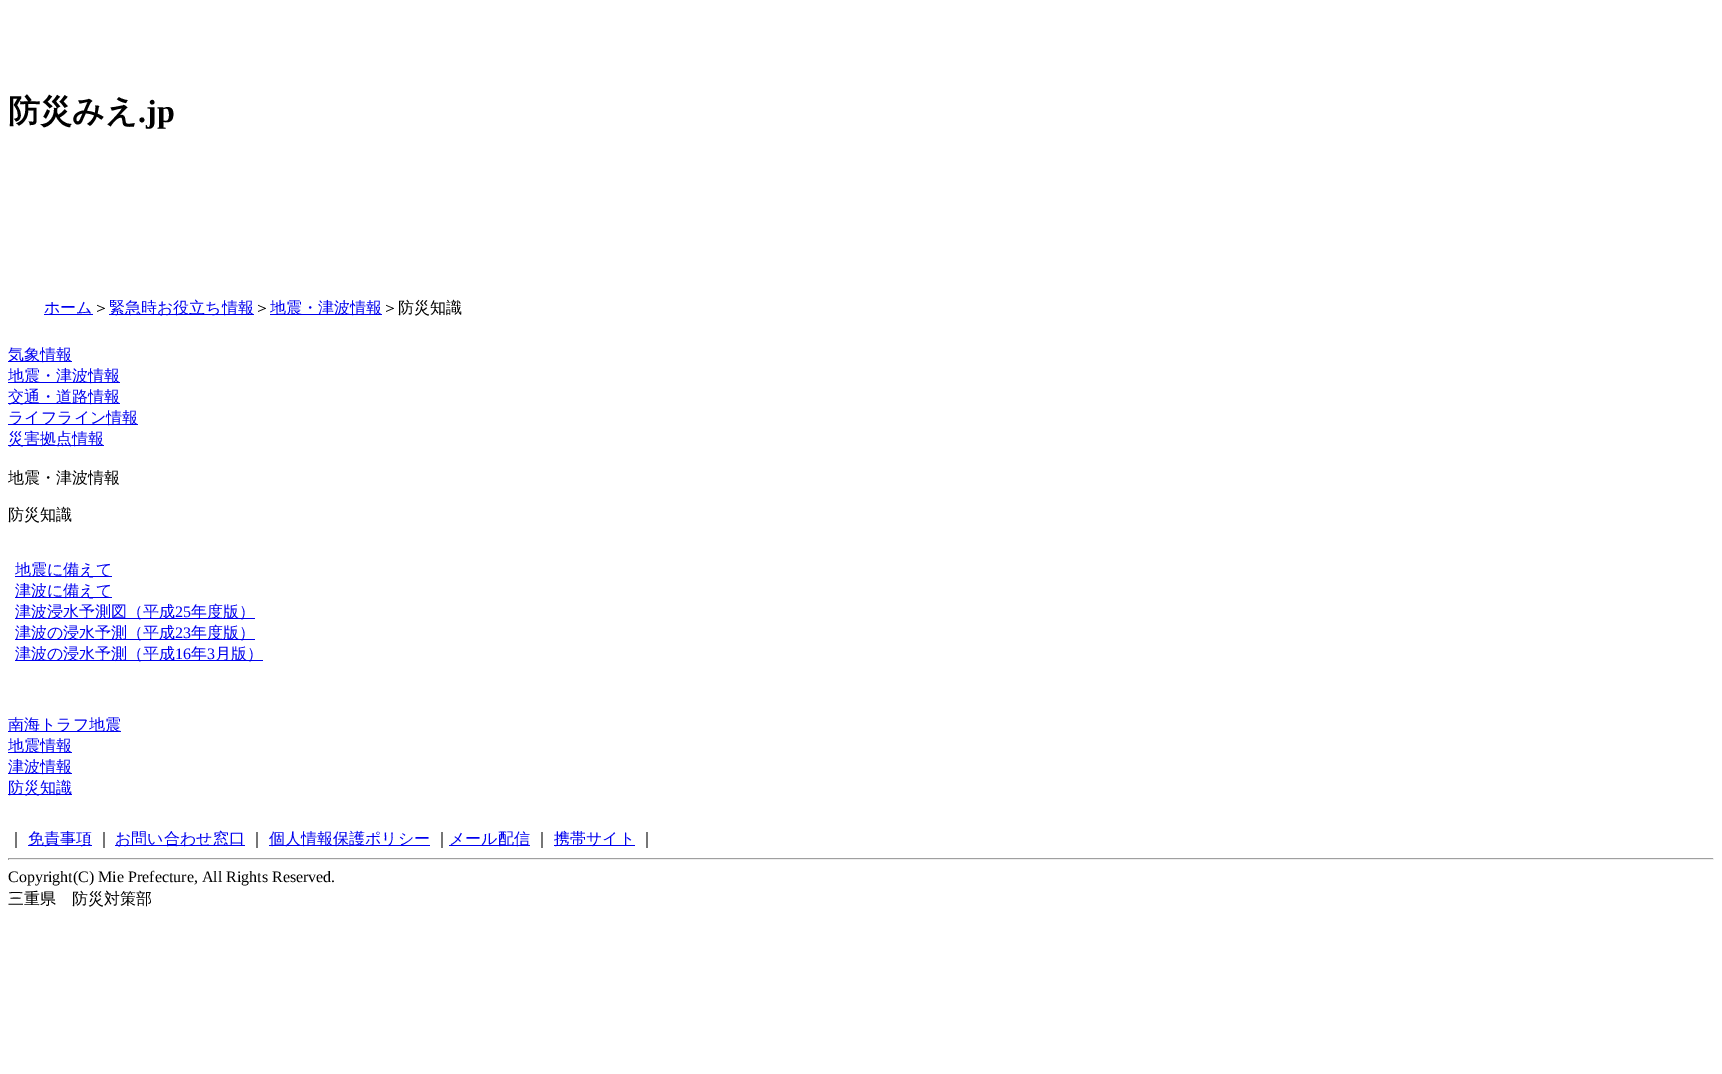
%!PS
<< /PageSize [1722 1074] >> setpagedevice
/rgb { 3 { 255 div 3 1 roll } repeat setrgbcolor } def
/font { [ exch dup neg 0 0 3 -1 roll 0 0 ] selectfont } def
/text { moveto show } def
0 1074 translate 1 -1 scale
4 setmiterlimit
255 255 255 rgb
0 0 1722 1074 rectfill
0 0 238 rgb
44 314 49 1 rectfill
109 314 145 1 rectfill
270 314 112 1 rectfill
8 361 64 1 rectfill
8 382 112 1 rectfill
8 403 112 1 rectfill
8 424 130 1 rectfill
8 445 96 1 rectfill
15 576 97 1 rectfill
15 597 97 1 rectfill
15 618 240 1 rectfill
15 639 240 1 rectfill
15 660 248 1 rectfill
8 731 113 1 rectfill
8 752 64 1 rectfill
8 773 64 1 rectfill
8 794 64 1 rectfill
28 845 64 1 rectfill
115 845 130 1 rectfill
269 845 161 1 rectfill
449 845 81 1 rectfill
554 845 81 1 rectfill
159 159 159 rgb
8 858 1706 1 rectfill
238 238 238 rgb
1713 858 1 2 rectfill
8 859 1706 1 rectfill
159 159 159 rgb
8 858 1 2 rectfill
/WenQuanYiZenHei-Bold 32 font
0 0 0 rgb
(防災みえ) 8 122 text
/LiberationSerif-Bold 32 font
(.jp) 138 122 text
/WenQuanYiZenHei-Medium 16 font
0 0 238 rgb
(ホーム) 44 313 text
0 0 0 rgb
(＞) 93 313 text
0 0 238 rgb
(緊急時お役立ち情報) 109 313 text
0 0 0 rgb
(＞) 254 313 text
0 0 238 rgb
(地震・津波情報) 270 313 text
0 0 0 rgb
(＞防災知識) 382 313 text
0 0 238 rgb
(気象情報) 8 360 text
(地震・津波情報) 8 381 text
(交通・道路情報) 8 402 text
(ライフライン情報) 8 423 text
(災害拠点情報) 8 444 text
0 0 0 rgb
(地震・津波情報) 8 483 text
(防災知識) 8 520 text
0 0 238 rgb
(地震に備えて) 15 575 text
(津波に備えて) 15 596 text
(津波浸水予測図（平成) 15 617 text
/LiberationSerif-Regular 16 font
(25) 175 617 text
/WenQuanYiZenHei-Medium 16 font
(年度版）) 191 617 text
(津波の浸水予測（平成) 15 638 text
/LiberationSerif-Regular 16 font
(23) 175 638 text
/WenQuanYiZenHei-Medium 16 font
(年度版）) 191 638 text
(津波の浸水予測（平成) 15 659 text
/LiberationSerif-Regular 16 font
(16) 175 659 text
/WenQuanYiZenHei-Medium 16 font
(年) 191 659 text
/LiberationSerif-Regular 16 font
(3) 207 659 text
/WenQuanYiZenHei-Medium 16 font
(月版）) 215 659 text
(南海トラフ地震) 8 730 text
(地震情報) 8 751 text
(津波情報) 8 772 text
(防災知識) 8 793 text
0 0 0 rgb
(｜) 8 844 text
0 0 238 rgb
(免責事項) 28 844 text
0 0 0 rgb
(｜) 96 844 text
0 0 238 rgb
(お問い合わせ窓口) 115 844 text
0 0 0 rgb
(｜) 249 844 text
0 0 238 rgb
(個人情報保護ポリシー) 269 844 text
0 0 0 rgb
(｜) 434 844 text
0 0 238 rgb
(メール配信) 449 844 text
0 0 0 rgb
(｜) 534 844 text
0 0 238 rgb
(携帯サイト) 554 844 text
0 0 0 rgb
(｜) 639 844 text
/LiberationSerif-Regular 16 font
(Copyright\(C\) Mie Prefecture, All Rights Reserved.) 8 882 text
/WenQuanYiZenHei-Medium 16 font
(三重県　防災対策部) 8 904 text
showpage
